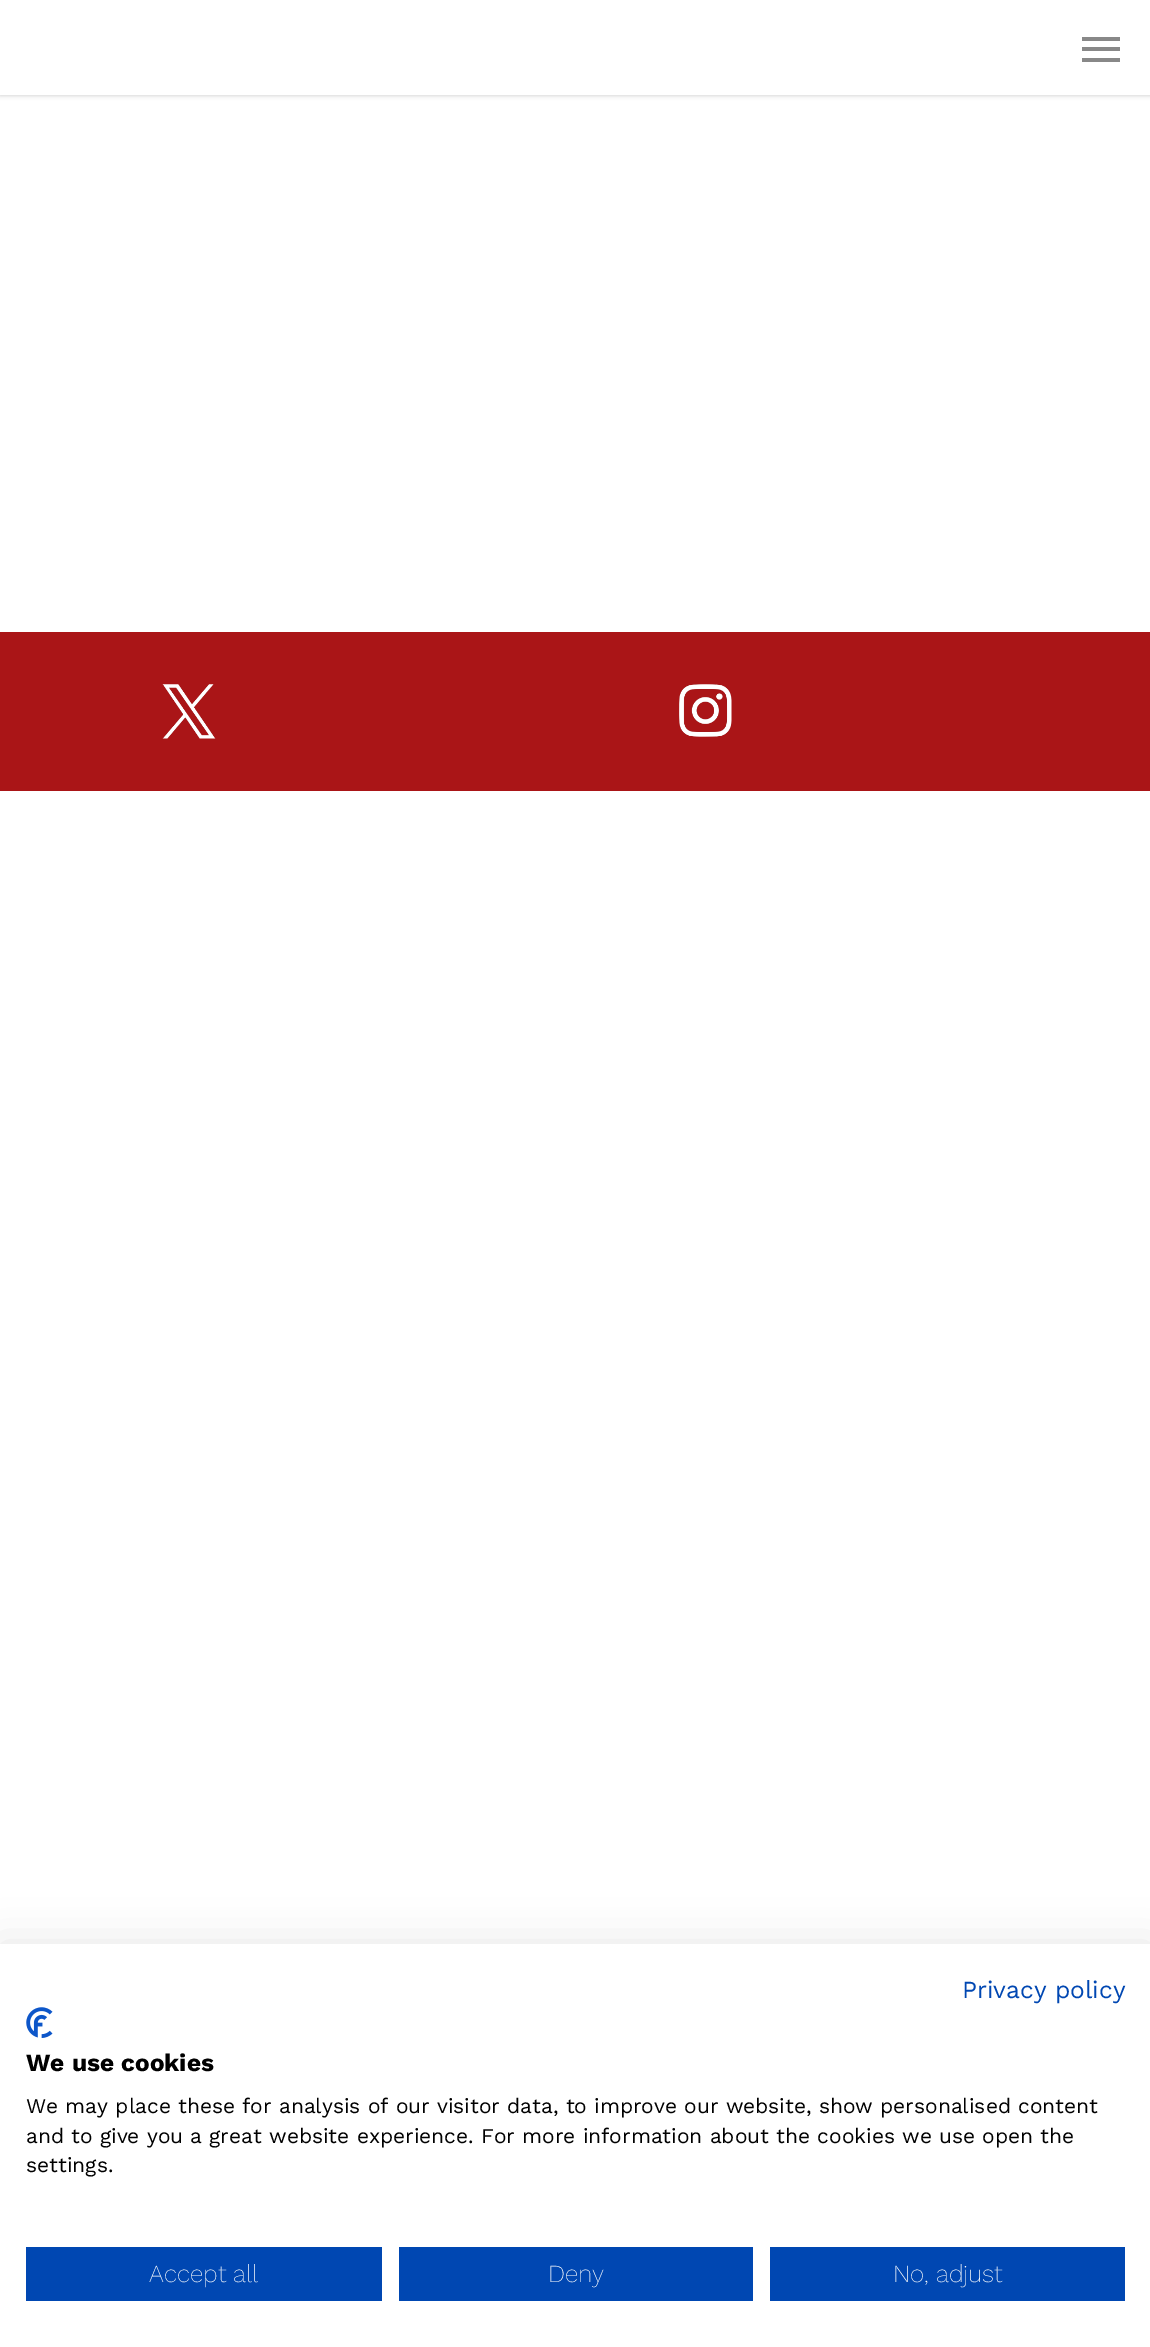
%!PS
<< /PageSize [1150 2347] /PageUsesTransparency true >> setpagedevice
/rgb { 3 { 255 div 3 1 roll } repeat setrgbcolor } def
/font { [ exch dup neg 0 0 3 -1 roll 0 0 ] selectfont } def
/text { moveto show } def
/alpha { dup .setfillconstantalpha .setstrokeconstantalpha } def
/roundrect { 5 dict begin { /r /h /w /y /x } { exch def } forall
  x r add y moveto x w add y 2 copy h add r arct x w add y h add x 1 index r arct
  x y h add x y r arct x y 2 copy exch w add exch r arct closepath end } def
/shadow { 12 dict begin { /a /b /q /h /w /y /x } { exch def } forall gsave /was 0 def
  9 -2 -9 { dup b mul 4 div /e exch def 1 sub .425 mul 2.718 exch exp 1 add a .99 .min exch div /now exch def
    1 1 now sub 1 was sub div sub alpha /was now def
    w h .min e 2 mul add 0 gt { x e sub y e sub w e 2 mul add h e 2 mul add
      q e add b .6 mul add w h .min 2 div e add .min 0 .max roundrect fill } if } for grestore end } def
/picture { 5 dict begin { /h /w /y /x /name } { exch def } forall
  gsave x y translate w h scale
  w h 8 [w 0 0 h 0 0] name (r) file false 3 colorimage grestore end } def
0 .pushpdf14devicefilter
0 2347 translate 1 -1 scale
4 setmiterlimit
255 255 255 rgb
0 0 1150 2347 rectfill
0 0 0 rgb
0 0 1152 95 0 2.5 0.22 shadow
255 255 255 rgb
0 0 1150 95 rectfill
136 136 136 rgb
1082 37 38 4 rectfill
1082 58 38 4 rectfill
1082 47 38 4 rectfill
170 21 23 rgb
0 632 1150 159 rectfill
(img_01.rgb) 162 684 54 55 picture
(img_02.rgb) 679 684 53 53 picture
0 0 0 rgb
0 1944 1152 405 0 21 0.1 shadow
255 255 255 rgb
0 1944 1150 403 rectfill
(img_03.rgb) 26 2007 27 31 picture
0 71 178 rgb
26 2247 356 54 rectfill
399 2247 354 54 rectfill
770 2247 355 54 rectfill
/WorkSans-Regular 24.5 font
(Privacy policy) 962 1998 text
/WorkSans-Bold 24.5 font
0 0 0 rgb
(We use cookies) 26 2071 text
/WorkSans-Regular 21 font
(We may place these for analysis of our visitor data, to improve our website, show personalised content) 26 2113 text
(and to give you a great website experience. For more information about the cookies we use open the) 26 2143 text
(settings.) 26 2172 text
/WorkSans-ExtraLight 24.5 font
255 255 255 rgb
(Accept all) 149 2282 text
(Deny) 548 2282 text
(No, adjust) 893 2282 text
.poppdf14devicefilter showpage
